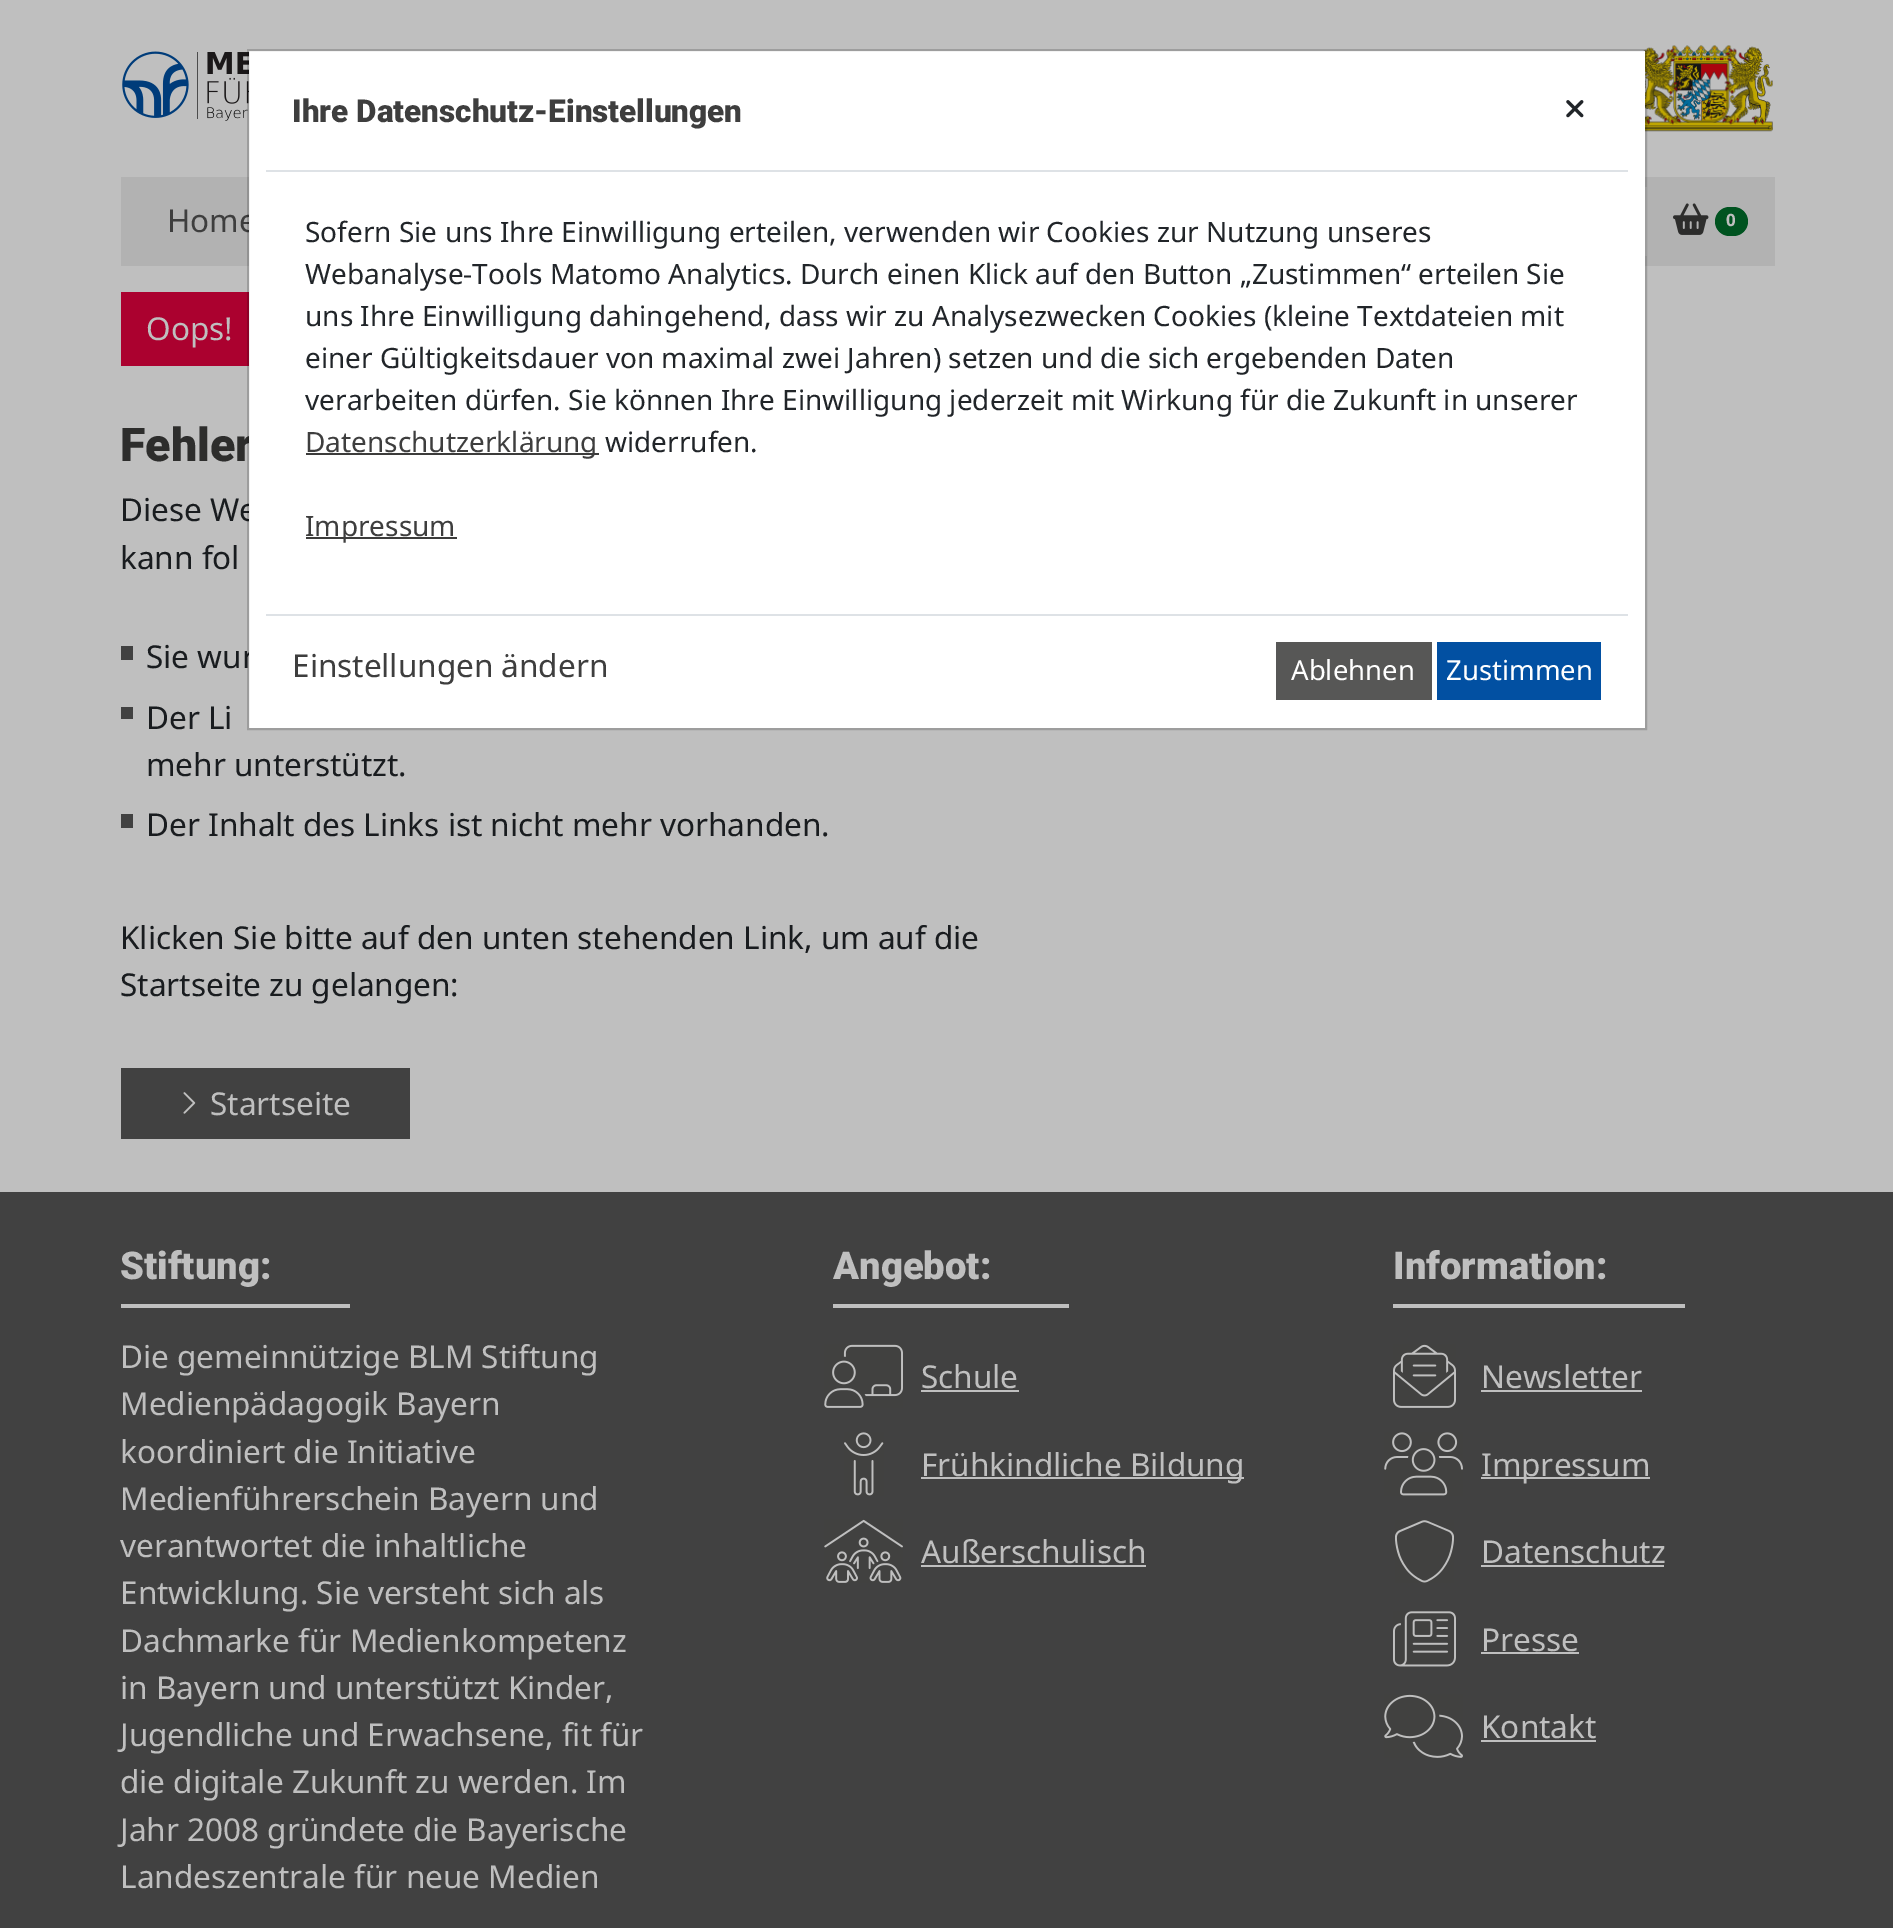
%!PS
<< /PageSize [1893 1928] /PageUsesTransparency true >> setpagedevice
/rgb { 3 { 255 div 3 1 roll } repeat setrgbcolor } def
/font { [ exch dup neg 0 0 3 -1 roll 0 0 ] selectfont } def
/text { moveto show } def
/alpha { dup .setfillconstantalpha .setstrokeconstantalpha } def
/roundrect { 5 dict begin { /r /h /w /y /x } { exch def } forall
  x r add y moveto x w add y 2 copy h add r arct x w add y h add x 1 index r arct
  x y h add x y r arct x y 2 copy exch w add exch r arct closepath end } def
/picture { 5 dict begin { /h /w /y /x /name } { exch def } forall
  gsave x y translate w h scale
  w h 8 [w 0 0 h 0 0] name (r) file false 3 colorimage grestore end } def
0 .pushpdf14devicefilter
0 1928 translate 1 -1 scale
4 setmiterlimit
191 191 191 rgb
0 0 1893 1928 rectfill
(img_02.rgb) 122 51 127 70 picture
(img_03.rgb) 1643 45 130 87 picture
178 178 178 rgb
121 177 1654 89 rectfill
191 191 191 rgb
1645 187 2 69 rectfill
(img_04.rgb) 1673 203 36 32 picture
0 83 32 rgb
1715 207 33 29 14.5 roundrect fill
171 1 47 rgb
121 292 128 74 rectfill
65 65 65 rgb
121 646 12 14 rectfill
121 707 12 12 rectfill
121 814 12 14 rectfill
121 1068 289 71 rectfill
(img_05.rgb) 183 1092 13 22 picture
0 1192 1893 736 rectfill
191 191 191 rgb
121 1304 229 4 rectfill
833 1304 236 4 rectfill
(img_06.rgb) 824 1344 79 64 picture
921 1390 98 2 rectfill
(img_07.rgb) 844 1432 40 64 picture
921 1477 323 2 rectfill
(img_08.rgb) 824 1519 79 64 picture
921 1565 225 2 rectfill
1393 1304 292 4 rectfill
(img_09.rgb) 1393 1344 63 64 picture
1481 1390 161 2 rectfill
(img_10.rgb) 1384 1432 79 64 picture
1481 1477 169 2 rectfill
(img_11.rgb) 1395 1520 59 63 picture
1481 1565 183 2 rectfill
(img_12.rgb) 1393 1611 63 56 picture
1481 1652 98 2 rectfill
(img_13.rgb) 1384 1694 79 64 picture
1481 1740 115 2 rectfill
/NotoSans-Regular 31.5 font
62 62 62 rgb
(Home) 167 232 text
/NotoSans-Bold 17 font
191 191 191 rgb
(0) 1726 226 text
/NotoSans-Regular 31.5 font
(Oops!) 146 340 text
/Roboto-Black 46.5 font
45 45 44 rgb
(Fehler) 120 461 text
/NotoSans-Regular 31.5 font
25 28 31 rgb
(Diese We) 120 521 text
(kann fol) 120 569 text
(Sie wur) 146 668 text
255 255 255 rgb
249 51 1396 677 rectfill
0.18 alpha
0 0 0 rgb
2 setlinewidth
248 50 1398 679 rectstroke
1 alpha
60 60 59 rgb
306 537 151 2 rectfill
/NotoSans-Regular 28 font
62 62 62 rgb
(Impressum) 305 536 text
33 37 41 rgb
(widerrufen.) 605 452 text
60 60 59 rgb
306 453 293 2 rectfill
62 62 62 rgb
(Datenschutzerklärung) 305 452 text
33 37 41 rgb
(verarbeiten dürfen. Sie können Ihre Einwilligung jederzeit mit Wirkung für die Zukunft in unserer) 305 410 text
(einer Gültigkeitsdauer von maximal zwei Jahren\) setzen und die sich ergebenden Daten) 305 368 text
(uns Ihre Einwilligung dahingehend, dass wir zu Analysezwecken Cookies \(kleine Textdateien mit) 305 326 text
(Webanalyse-Tools Matomo Analytics. Durch einen Klick auf den Button „Zustimmen“ erteilen Sie) 305 284 text
(Sofern Sie uns Ihre Einwilligung erteilen, verwenden wir Cookies zur Nutzung unseres) 305 242 text
2 80 162 rgb
1437 642 164 58 rectfill
/NotoSans-Regular 27.5 font
255 255 255 rgb
(Zustimmen) 1446 680 text
87 87 86 rgb
1276 642 156 58 rectfill
255 255 255 rgb
(Ablehnen) 1291 680 text
/NotoSans-Regular 31.5 font
62 62 62 rgb
(Einstellungen ändern) 292 677 text
222 226 230 rgb
266 614 1362 2 rectfill
(img_01.rgb) 1566 100 18 18 picture
/Roboto-Black 31.5 font
62 62 62 rgb
(Ihre Datenschutz-Einstellungen) 292 122 text
222 226 230 rgb
266 170 1362 2 rectfill
/NotoSans-Regular 31.5 font
25 28 31 rgb
(Der Li) 146 729 text
(mehr unterstützt.) 146 776 text
(Der Inhalt des Links ist nicht mehr vorhanden.) 146 836 text
(Klicken Sie bitte auf den unten stehenden Link, um auf die) 120 949 text
(Startseite zu gelangen:) 120 996 text
191 191 191 rgb
(Startseite) 210 1115 text
/Roboto-Black 38.25 font
(Stiftung:) 120 1279 text
/NotoSans-Regular 31.5 font
(Die gemeinnützige BLM Stiftung) 120 1368 text
(Medienpädagogik Bayern) 120 1415 text
(koordiniert die Initiative) 120 1463 text
(Medienführerschein Bayern und) 120 1510 text
(verantwortet die inhaltliche) 120 1557 text
(Entwicklung. Sie versteht sich als) 120 1604 text
(Dachmarke für Medienkompetenz) 120 1652 text
(in Bayern und unterstützt Kinder,) 120 1699 text
(Jugendliche und Erwachsene, fit für) 120 1746 text
(die digitale Zukunft zu werden. Im) 120 1793 text
(Jahr 2008 gründete die Bayerische) 120 1841 text
(Landeszentrale für neue Medien) 120 1888 text
/Roboto-Black 38.25 font
(Angebot:) 833 1279 text
/NotoSans-Regular 31.5 font
(Schule) 921 1388 text
(Frühkindliche Bildung) 921 1476 text
(Außerschulisch) 921 1563 text
/Roboto-Black 38.25 font
(Information:) 1393 1279 text
/NotoSans-Regular 31.5 font
(Newsletter) 1481 1388 text
(Impressum) 1481 1476 text
(Datenschutz) 1481 1563 text
(Presse) 1481 1651 text
(Kontakt) 1481 1738 text
.poppdf14devicefilter showpage
